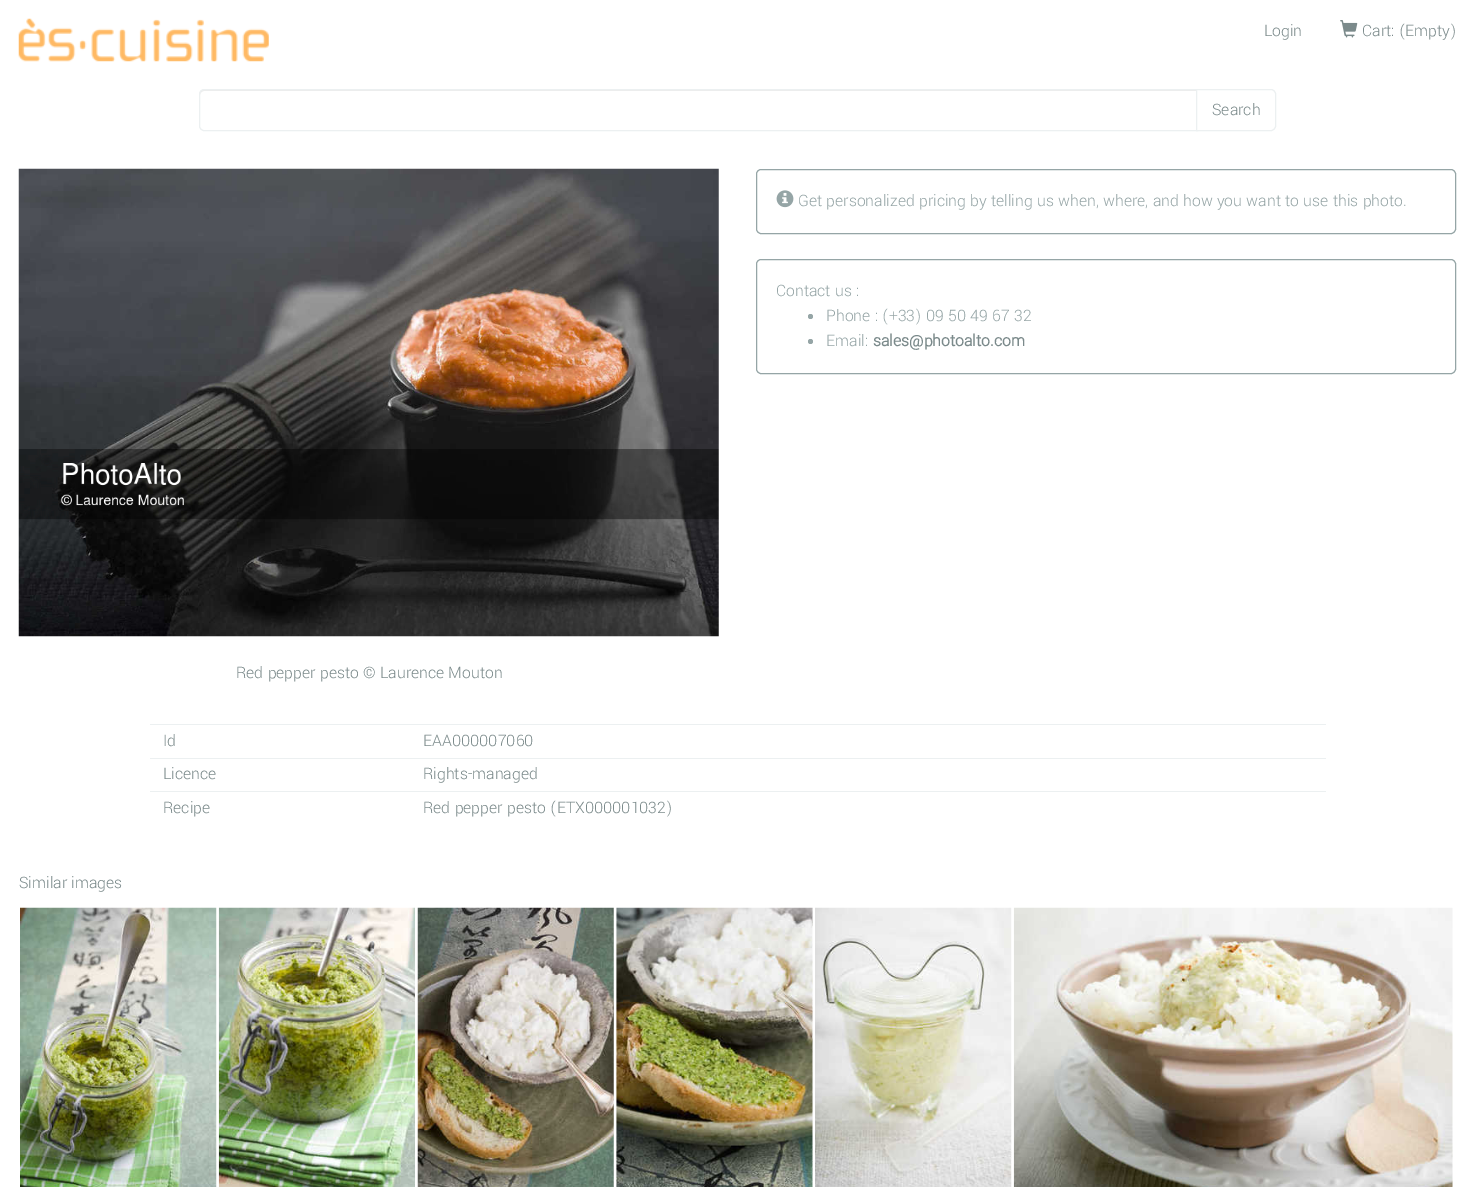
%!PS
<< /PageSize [1475 1187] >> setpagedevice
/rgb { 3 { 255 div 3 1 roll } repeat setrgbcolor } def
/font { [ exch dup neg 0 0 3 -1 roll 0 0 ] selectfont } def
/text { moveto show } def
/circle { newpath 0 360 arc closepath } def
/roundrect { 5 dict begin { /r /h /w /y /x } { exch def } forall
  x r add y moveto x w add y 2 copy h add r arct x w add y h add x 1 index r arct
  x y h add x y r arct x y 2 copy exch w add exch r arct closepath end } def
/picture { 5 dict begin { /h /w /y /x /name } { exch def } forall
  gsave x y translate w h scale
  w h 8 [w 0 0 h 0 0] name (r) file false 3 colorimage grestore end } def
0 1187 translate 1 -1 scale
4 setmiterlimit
255 255 255 rgb
0 0 1475 1187 rectfill
(img_01.rgb) 18 18 251 44 picture
(img_02.rgb) 1340 20 18 18 picture
236 236 236 rgb
204 91 moveto 992 0 rlineto 0 -1 rlineto -992 0 rlineto -3 0 -4 2 -4 5 rcurveto 0 -2 2 -4 4 -4 rcurveto closepath fill
236 240 241 rgb
204 89.5 moveto 993.5 0 rlineto 0 41 rlineto -993.5 0 rlineto -2.5 0 -4.5 -2 -4.5 -4.5 rcurveto 0 -32 rlineto 0 -2.5 2 -4.5 4.5 -4.5 rcurveto closepath stroke
255 255 255 rgb
1196.5 89.5 moveto 74.5 0 rlineto 2.5 0 4.5 2 4.5 4.5 rcurveto 0 32 rlineto 0 2.5 -2 4.5 -4.5 4.5 rcurveto -74.5 0 rlineto closepath gsave fill grestore
236 240 241 rgb
stroke
149 165 166 rgb
756.5 169.5 699 64 4.5 roundrect stroke
(img_03.rgb) 776 190 18 18 picture
756.5 259.5 699 114 4.5 roundrect stroke
810.5 316.5 2.5 circle fill
810.5 341.5 2.5 circle fill
(img_04.rgb) 18 168 701 469 picture
236 240 241 rgb
150 724 1176 1 rectfill
150 758 1176 1 rectfill
150 791 1176 1 rectfill
(img_05.rgb) 20 907 197 280 picture
(img_06.rgb) 218 907 197 280 picture
(img_07.rgb) 417 907 197 280 picture
(img_08.rgb) 616 907 197 280 picture
(img_09.rgb) 815 907 197 280 picture
(img_10.rgb) 1013 907 440 280 picture
/Yantramanav-Light 17.5 font
123 138 139 rgb
(Login) 1264 36 text
(Cart: \(Empty\)) 1362 36 text
(Search) 1212 115 text
149 165 166 rgb
(Get personalized pricing by telling us when, where, and how you want to use this photo.) 798 206 text
(Contact us :) 776 296 text
(Phone : \(+33\) 09 50 49 67 32) 826 321 text
(Email:) 826 346 text
/Yantramanav-Bold 17.5 font
123 138 139 rgb
(sales@photoalto.com) 873 346 text
/Yantramanav-Light 17.5 font
(Red pepper pesto © Laurence Mouton) 236 678 text
(Id) 163 746 text
(EAA000007060) 423 746 text
(Licence) 163 779 text
(Rights-managed) 423 779 text
(Recipe) 163 813 text
(Red pepper pesto \(ETX000001032\)) 423 813 text
(Similar images) 19 888 text
showpage
